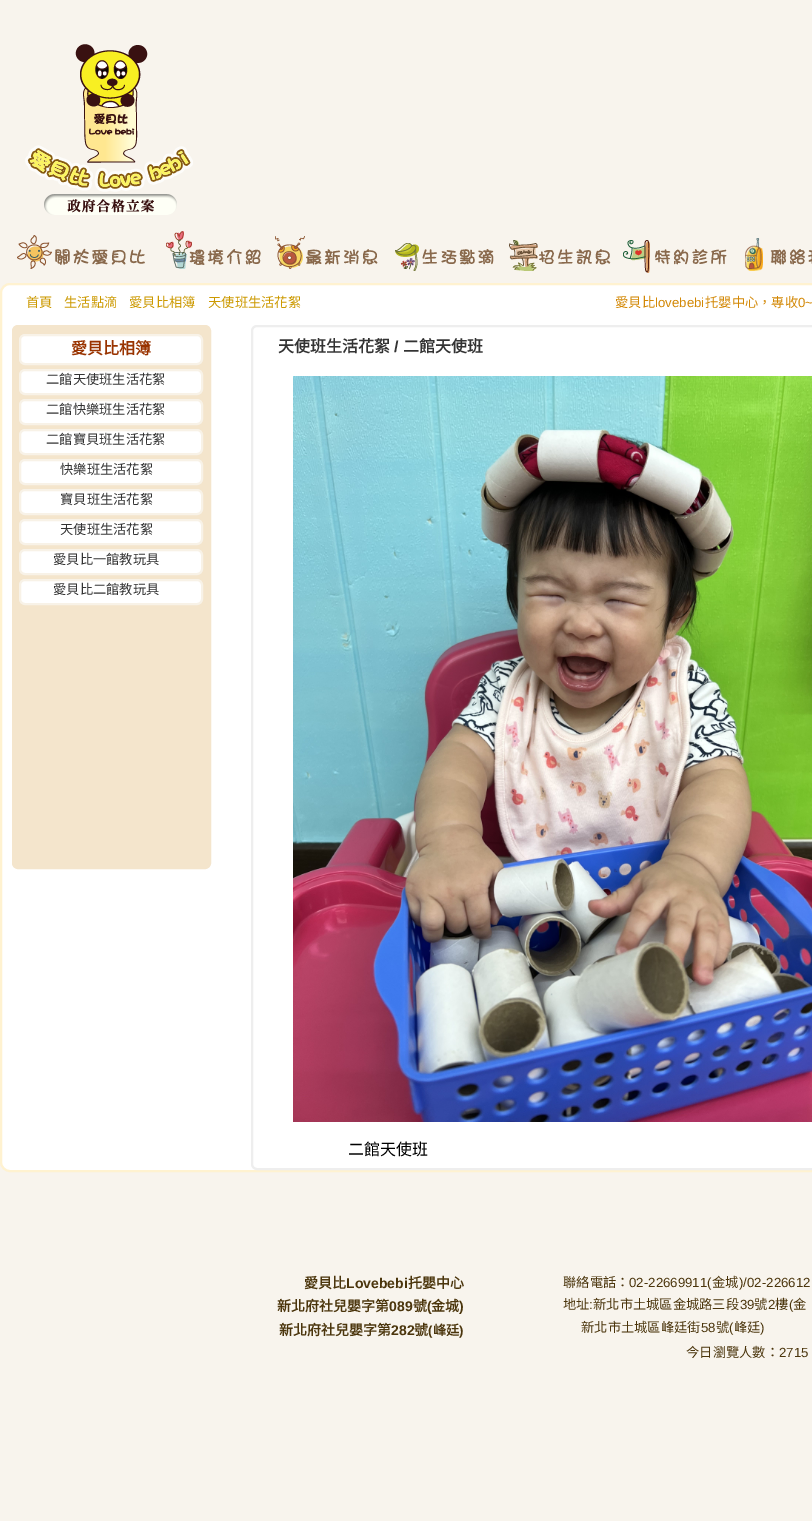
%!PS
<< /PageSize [812 1521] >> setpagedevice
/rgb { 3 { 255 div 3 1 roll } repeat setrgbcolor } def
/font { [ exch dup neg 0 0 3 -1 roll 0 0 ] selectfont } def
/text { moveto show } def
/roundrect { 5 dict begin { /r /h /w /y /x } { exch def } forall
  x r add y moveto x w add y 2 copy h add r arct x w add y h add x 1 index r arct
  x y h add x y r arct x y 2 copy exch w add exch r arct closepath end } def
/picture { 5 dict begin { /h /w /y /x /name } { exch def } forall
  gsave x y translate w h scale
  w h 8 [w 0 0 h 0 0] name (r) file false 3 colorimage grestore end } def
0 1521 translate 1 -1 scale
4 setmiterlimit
248 244 237 rgb
0 0 812 1521 rectfill
(img_01.rgb) 25 44 168 171 picture
(img_02.rgb) 17 235 128 34 picture
(img_03.rgb) 166 231 95 38 picture
(img_04.rgb) 275 236 103 33 picture
(img_05.rgb) 395 243 99 28 picture
(img_06.rgb) 509 240 102 31 picture
(img_07.rgb) 623 240 104 33 picture
(img_08.rgb) 745 238 67 33 picture
255 255 255 rgb
1 284 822 887 9 roundrect gsave fill grestore
255 242 208 rgb
2 setlinewidth
stroke
244 229 204 rgb
13 326 197 542 5 roundrect gsave fill grestore
stroke
255 255 255 rgb
20 335 182 29 5 roundrect gsave fill grestore
248 242 231 rgb
stroke
255 255 255 rgb
20 370 182 24 5 roundrect gsave fill grestore
248 242 231 rgb
stroke
255 255 255 rgb
20 400 182 24 5 roundrect gsave fill grestore
248 242 231 rgb
stroke
255 255 255 rgb
20 430 182 24 5 roundrect gsave fill grestore
248 242 231 rgb
stroke
255 255 255 rgb
20 460 182 24 5 roundrect gsave fill grestore
248 242 231 rgb
stroke
255 255 255 rgb
20 490 182 24 5 roundrect gsave fill grestore
248 242 231 rgb
stroke
255 255 255 rgb
20 520 182 24 5 roundrect gsave fill grestore
248 242 231 rgb
stroke
255 255 255 rgb
20 550 182 24 5 roundrect gsave fill grestore
248 242 231 rgb
stroke
255 255 255 rgb
20 580 182 24 5 roundrect gsave fill grestore
248 242 231 rgb
stroke
238 238 238 rgb
252 326 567 843 5 roundrect stroke
(img_09.rgb) 293 376 519 746 picture
/NotoSansCJKTC-Regular 13.25 font
204 153 0 rgb
(首頁) 26 307 text
(生活點滴) 64 307 text
(愛貝比相簿) 129 307 text
(天使班生活花絮) 208 307 text
211 136 5 rgb
(愛貝比) 615 307 text
/LiberationSans-Regular 13.25 font
(lovebebi) 655 307 text
/NotoSansCJKTC-Regular 13.25 font
(托嬰中心，專收) 705 307 text
/LiberationSans-Regular 13.25 font
(0~) 798 307 text
/NotoSansCJKTC-Bold 16 font
153 51 0 rgb
(愛貝比相簿) 71 354 text
/NotoSansCJKTC-Regular 13.25 font
51 51 51 rgb
(二館天使班生活花絮) 46 384 text
(二館快樂班生活花絮) 46 414 text
(二館寶貝班生活花絮) 46 444 text
(快樂班生活花絮) 60 474 text
(寶貝班生活花絮) 60 504 text
(天使班生活花絮) 60 534 text
(愛貝比一館教玩具) 53 564 text
(愛貝比二館教玩具) 53 594 text
/NotoSansCJKTC-Bold 16 font
(天使班生活花絮) 278 352 text
/LiberationSans-Bold 16 font
(/) 394 352 text
/NotoSansCJKTC-Bold 16 font
(二館天使班) 403 352 text
/NotoSansCJKTC-Regular 16 font
0 0 0 rgb
(二館天使班) 348 1155 text
/NotoSansCJKTC-Bold 14 font
75 53 12 rgb
(愛貝比) 304 1288 text
/LiberationSans-Bold 14 font
(Lovebebi) 346 1288 text
/NotoSansCJKTC-Bold 14 font
(托嬰中心) 408 1288 text
(新北府社兒嬰字第) 277 1311 text
/LiberationSans-Bold 14 font
(089) 389 1311 text
/NotoSansCJKTC-Bold 14 font
(號) 413 1311 text
/LiberationSans-Bold 14 font
(\() 427 1311 text
/NotoSansCJKTC-Bold 14 font
(金城) 431 1311 text
/LiberationSans-Bold 14 font
(\)) 459 1311 text
/NotoSansCJKTC-Bold 14 font
(新北府社兒嬰字第) 279 1335 text
/LiberationSans-Bold 14 font
(282) 391 1335 text
/NotoSansCJKTC-Bold 14 font
(號) 414 1335 text
/LiberationSans-Bold 13.25 font
(\() 428 1335 text
/NotoSansCJKTC-Bold 13.25 font
(峰廷) 433 1335 text
/LiberationSans-Bold 13.25 font
(\)) 459 1335 text
/NotoSansCJKTC-Regular 13.25 font
(聯絡電話：) 563 1287 text
/LiberationSans-Regular 13.25 font
(02-22669911\() 629 1287 text
/NotoSansCJKTC-Regular 13.25 font
(金城) 712 1287 text
/LiberationSans-Regular 13.25 font
(\)/02-226612) 739 1287 text
/NotoSansCJKTC-Regular 13.25 font
(地址) 563 1309 text
/LiberationSans-Regular 13.25 font
(:) 589 1309 text
/NotoSansCJKTC-Regular 13.25 font
(新北市土城區金城路三段) 593 1309 text
/LiberationSans-Regular 13.25 font
(39) 740 1309 text
/NotoSansCJKTC-Regular 13.25 font
(號) 754 1309 text
/LiberationSans-Regular 13.25 font
(2) 768 1309 text
/NotoSansCJKTC-Regular 13.25 font
(樓) 775 1309 text
/LiberationSans-Regular 13.25 font
(\() 789 1309 text
/NotoSansCJKTC-Regular 13.25 font
(金) 793 1309 text
(新北市土城區峰廷街) 581 1332 text
/LiberationSans-Regular 13.25 font
(58) 701 1332 text
/NotoSansCJKTC-Regular 13.25 font
(號) 716 1332 text
/LiberationSans-Regular 13.25 font
(\() 729 1332 text
/NotoSansCJKTC-Regular 13.25 font
(峰廷) 734 1332 text
/LiberationSans-Regular 13.25 font
(\)) 760 1332 text
/NotoSansCJKTC-Regular 13.25 font
(今日瀏覽人數：) 686 1357 text
/LiberationSans-Regular 13.25 font
(2715) 779 1357 text
showpage
